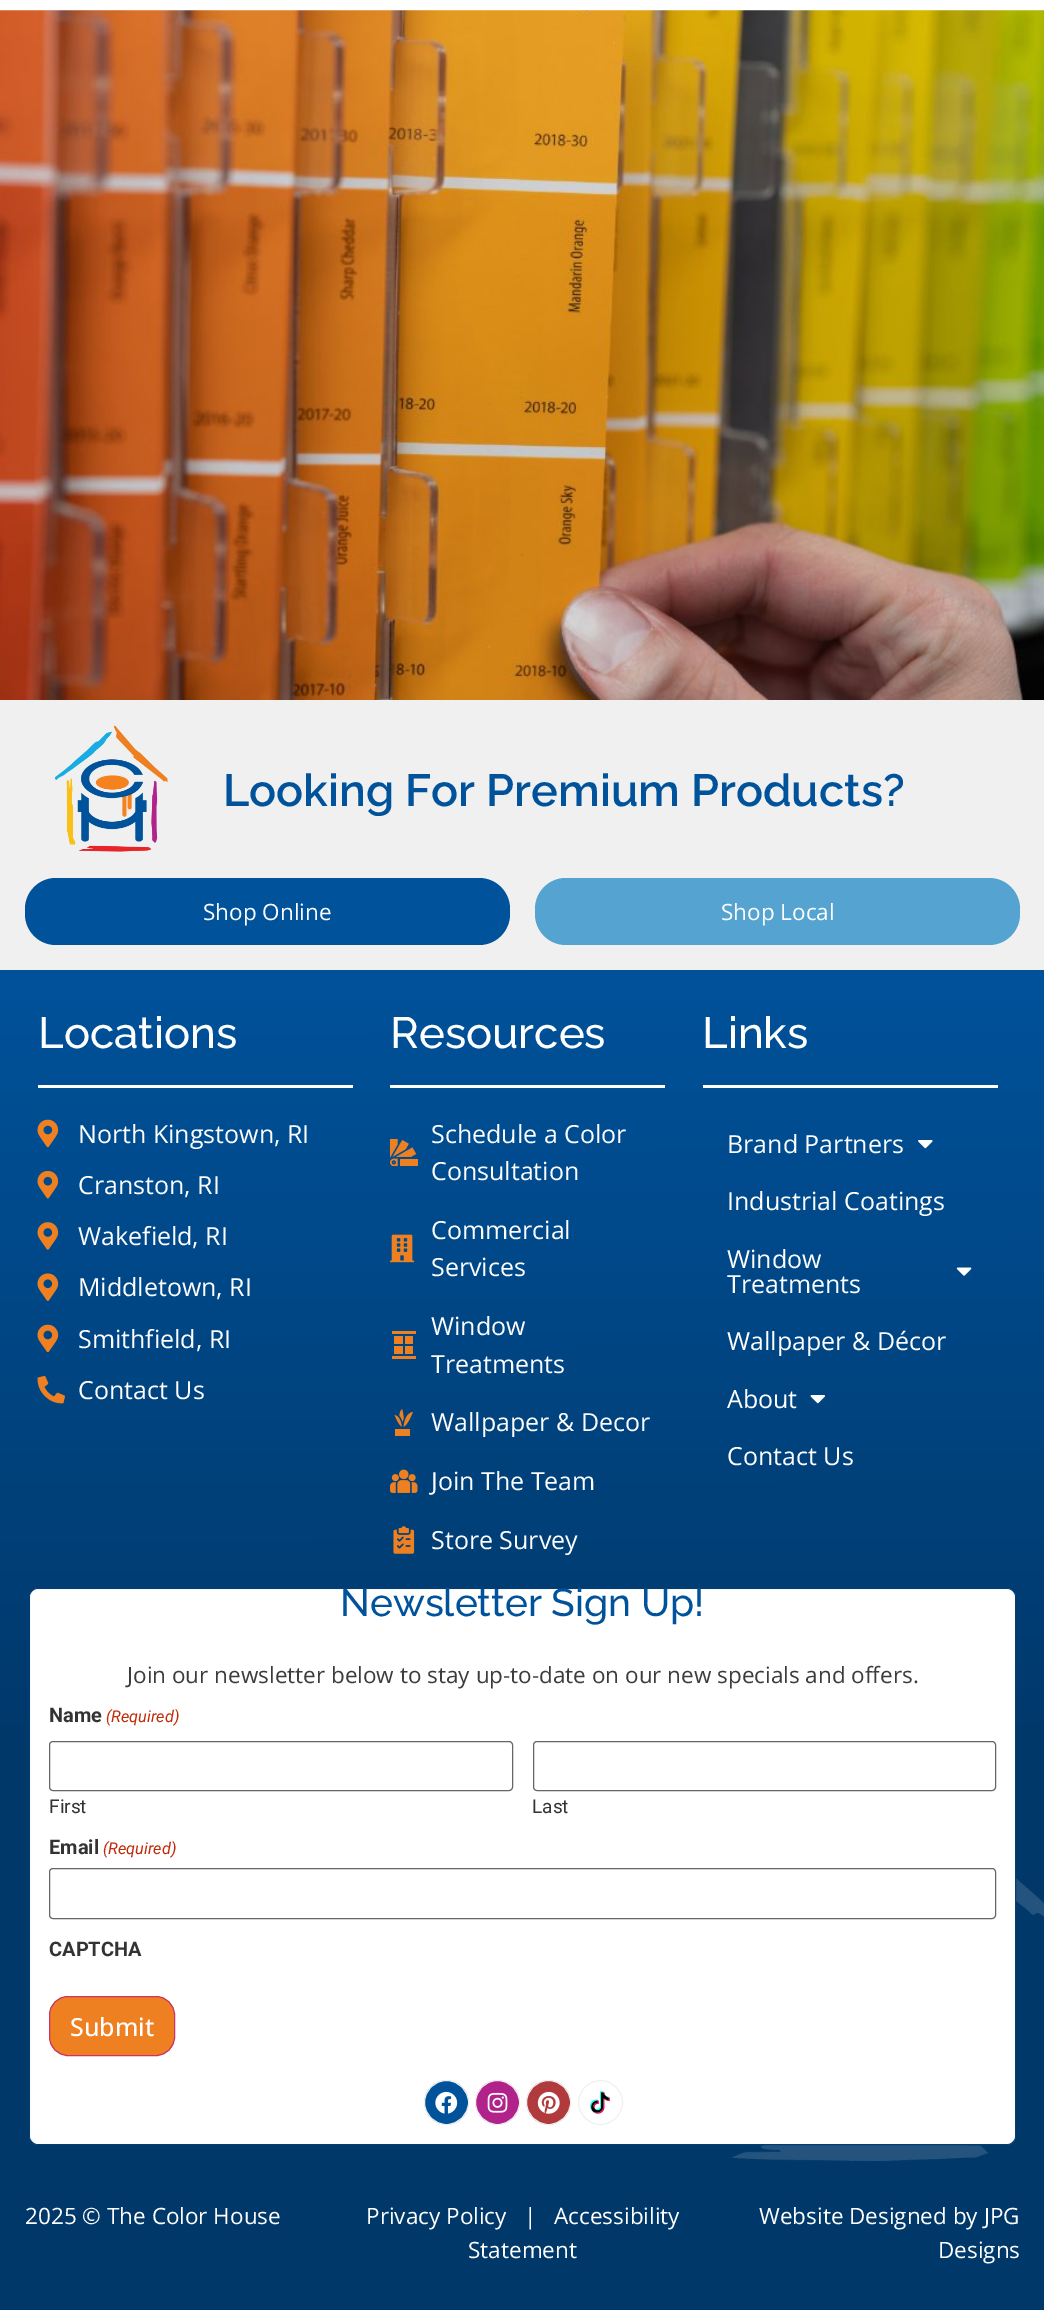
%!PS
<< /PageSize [1044 2310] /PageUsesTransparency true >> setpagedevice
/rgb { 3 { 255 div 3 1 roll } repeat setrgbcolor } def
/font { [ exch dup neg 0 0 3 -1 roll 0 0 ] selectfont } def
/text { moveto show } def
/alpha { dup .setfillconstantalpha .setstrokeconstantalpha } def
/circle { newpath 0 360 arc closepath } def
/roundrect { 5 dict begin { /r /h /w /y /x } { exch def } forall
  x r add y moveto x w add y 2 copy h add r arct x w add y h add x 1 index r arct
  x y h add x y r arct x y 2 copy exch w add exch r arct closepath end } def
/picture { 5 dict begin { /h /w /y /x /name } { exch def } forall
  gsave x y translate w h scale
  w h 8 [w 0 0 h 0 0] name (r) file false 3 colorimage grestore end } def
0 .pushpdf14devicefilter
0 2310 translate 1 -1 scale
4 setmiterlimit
255 255 255 rgb
0 0 1044 2310 rectfill
(img_01.rgb) 0 10 1044 690 picture
240 240 240 rgb
0 700 1044 270 rectfill
(img_02.rgb) 55 725 113 127 picture
0 82 155 rgb
25 878 485 67 31 roundrect fill
84 163 208 rgb
535 878 485 67 31 roundrect fill
gsave 0 970 moveto 1044 0 rlineto 0 1204 rlineto -1044 0 rlineto closepath clip newpath
<< /ShadingType 2 /ColorSpace /DeviceRGB /Coords [522 970 523 2174] /Extend [true true] /Function << /FunctionType 3 /Domain [0 1] /Functions [<< /FunctionType 2 /Domain [0 1] /C0 [0 0.322 0.608] /C1 [0 0.22 0.412] /N 1 >> << /FunctionType 2 /Domain [0 1] /C0 [0 0.22 0.412] /C1 [0 0.22 0.412] /N 1 >>] /Bounds [0.66] /Encode [0 1 0 1] >> >> shfill grestore
255 255 255 rgb
38 1085 315 3 rectfill
(img_03.rgb) 37 1119 22 29 picture
(img_04.rgb) 37 1170 22 29 picture
(img_05.rgb) 37 1222 22 28 picture
(img_06.rgb) 37 1273 22 28 picture
(img_07.rgb) 37 1324 22 29 picture
(img_08.rgb) 37 1376 28 28 picture
390 1085 275 3 rectfill
(img_09.rgb) 390 1139 28 27 picture
(img_10.rgb) 390 1234 25 29 picture
238 128 33 rgb
394 1346 9 8 rectfill
394 1336 9 8 rectfill
392 1356 24 3 rectfill
392 1331 24 3 rectfill
405 1336 8 8 rectfill
405 1346 8 8 rectfill
(img_11.rgb) 394 1409 19 27 picture
(img_12.rgb) 390 1469 28 24 picture
(img_13.rgb) 393 1526 22 28 picture
255 255 255 rgb
703 1085 295 3 rectfill
(img_14.rgb) 918 1140 15 9 picture
(img_15.rgb) 956 1267 16 9 picture
(img_16.rgb) 810 1395 15 9 picture
(img_21.rgb) 732 1878 312 283 picture
29.5 1588.5 986 556 8.5 roundrect gsave fill grestore
4 61 116 rgb
stroke
0.84 alpha
255 255 255 rgb
30 1589 985 555 9 roundrect fill
1 alpha
102 102 102 rgb
49.5 1741.5 463 49 3.5 roundrect stroke
533.5 1741.5 462 49 3.5 roundrect stroke
49.5 1868.5 946 50 3.5 roundrect stroke
238 128 33 rgb
49.5 1996.5 125 59 18.5 roundrect gsave fill grestore
204 51 102 rgb
stroke
0 82 155 rgb
446.5 2102.5 22 circle gsave fill grestore
240 240 240 rgb
stroke
(img_17.rgb) 435 2091 23 23 picture
177 34 139 rgb
497.5 2102.5 22 circle gsave fill grestore
240 240 240 rgb
stroke
(img_18.rgb) 487 2092 21 21 picture
177 58 61 rgb
548.5 2102.5 22 circle gsave fill grestore
240 240 240 rgb
stroke
(img_19.rgb) 537 2091 23 23 picture
600.5 2102.5 22 circle stroke
(img_20.rgb) 590 2091 20 23 picture
0 56 105 rgb
0 2174 1044 136 rectfill
/Raleway-SemiBold 45 font
0 82 155 rgb
(Looking For Premium Products?) 223 806 text
/OpenSans-Regular 22.5 font
255 255 255 rgb
(Shop Online) 203 920 text
(Shop Local) 721 920 text
/Raleway-Medium 43.75 font
(Locations) 38 1048 text
/OpenSans-Regular 25 font
(North Kingstown, RI) 78 1143 text
(Cranston, RI) 78 1194 text
(Wakefield, RI) 78 1245 text
(Middletown, RI) 78 1296 text
(Smithfield, RI) 78 1348 text
(Contact Us) 78 1399 text
/Raleway-Medium 43.75 font
(Resources) 390 1048 text
/OpenSans-Regular 25 font
(Schedule a Color) 431 1143 text
(Consultation) 431 1180 text
(Commercial) 431 1239 text
(Services) 431 1276 text
(Window) 431 1335 text
(Treatments) 431 1373 text
(Wallpaper & Decor) 431 1431 text
(Join The Team) 431 1490 text
(Store Survey) 431 1549 text
/Raleway-Medium 43.75 font
(Links) 702 1048 text
/OpenSans-Regular 25 font
(Brand Partners) 727 1153 text
(Industrial Coatings) 727 1210 text
(Window) 727 1268 text
(Treatments) 727 1293 text
(Wallpaper & Décor) 727 1350 text
(About) 727 1408 text
(Contact Us) 727 1465 text
/Raleway-Medium 38.75 font
0 82 155 rgb
(Newsletter Sign Up!) 340 1616 text
/OpenSans-Regular 22.5 font
60 60 60 rgb
(Join our newsletter below to stay up-to-date on our new specials and offers.) 127 1683 text
/Roboto-Bold 20 font
51 51 51 rgb
(Name) 49 1722 text
/Roboto-Italic 16.25 font
192 43 10 rgb
(\(Required\)) 106 1722 text
/Roboto-Regular 19 font
51 51 51 rgb
(First) 49 1813 text
(Last) 532 1813 text
/Roboto-Bold 20 font
(Email) 49 1854 text
/Roboto-Italic 16.25 font
192 43 10 rgb
(\(Required\)) 103 1854 text
/Roboto-Bold 20 font
51 51 51 rgb
(CAPTCHA) 49 1956 text
/OpenSans-Medium 25 font
255 255 255 rgb
(Submit) 70 2036 text
/OpenSans-Regular 22.5 font
(2025 © The Color House) 25 2224 text
(Privacy Policy) 366 2224 text
(|) 524 2224 text
(Accessibility) 554 2224 text
(Statement) 468 2258 text
(Website Designed by JPG) 759 2224 text
(Designs) 938 2258 text
.poppdf14devicefilter showpage
